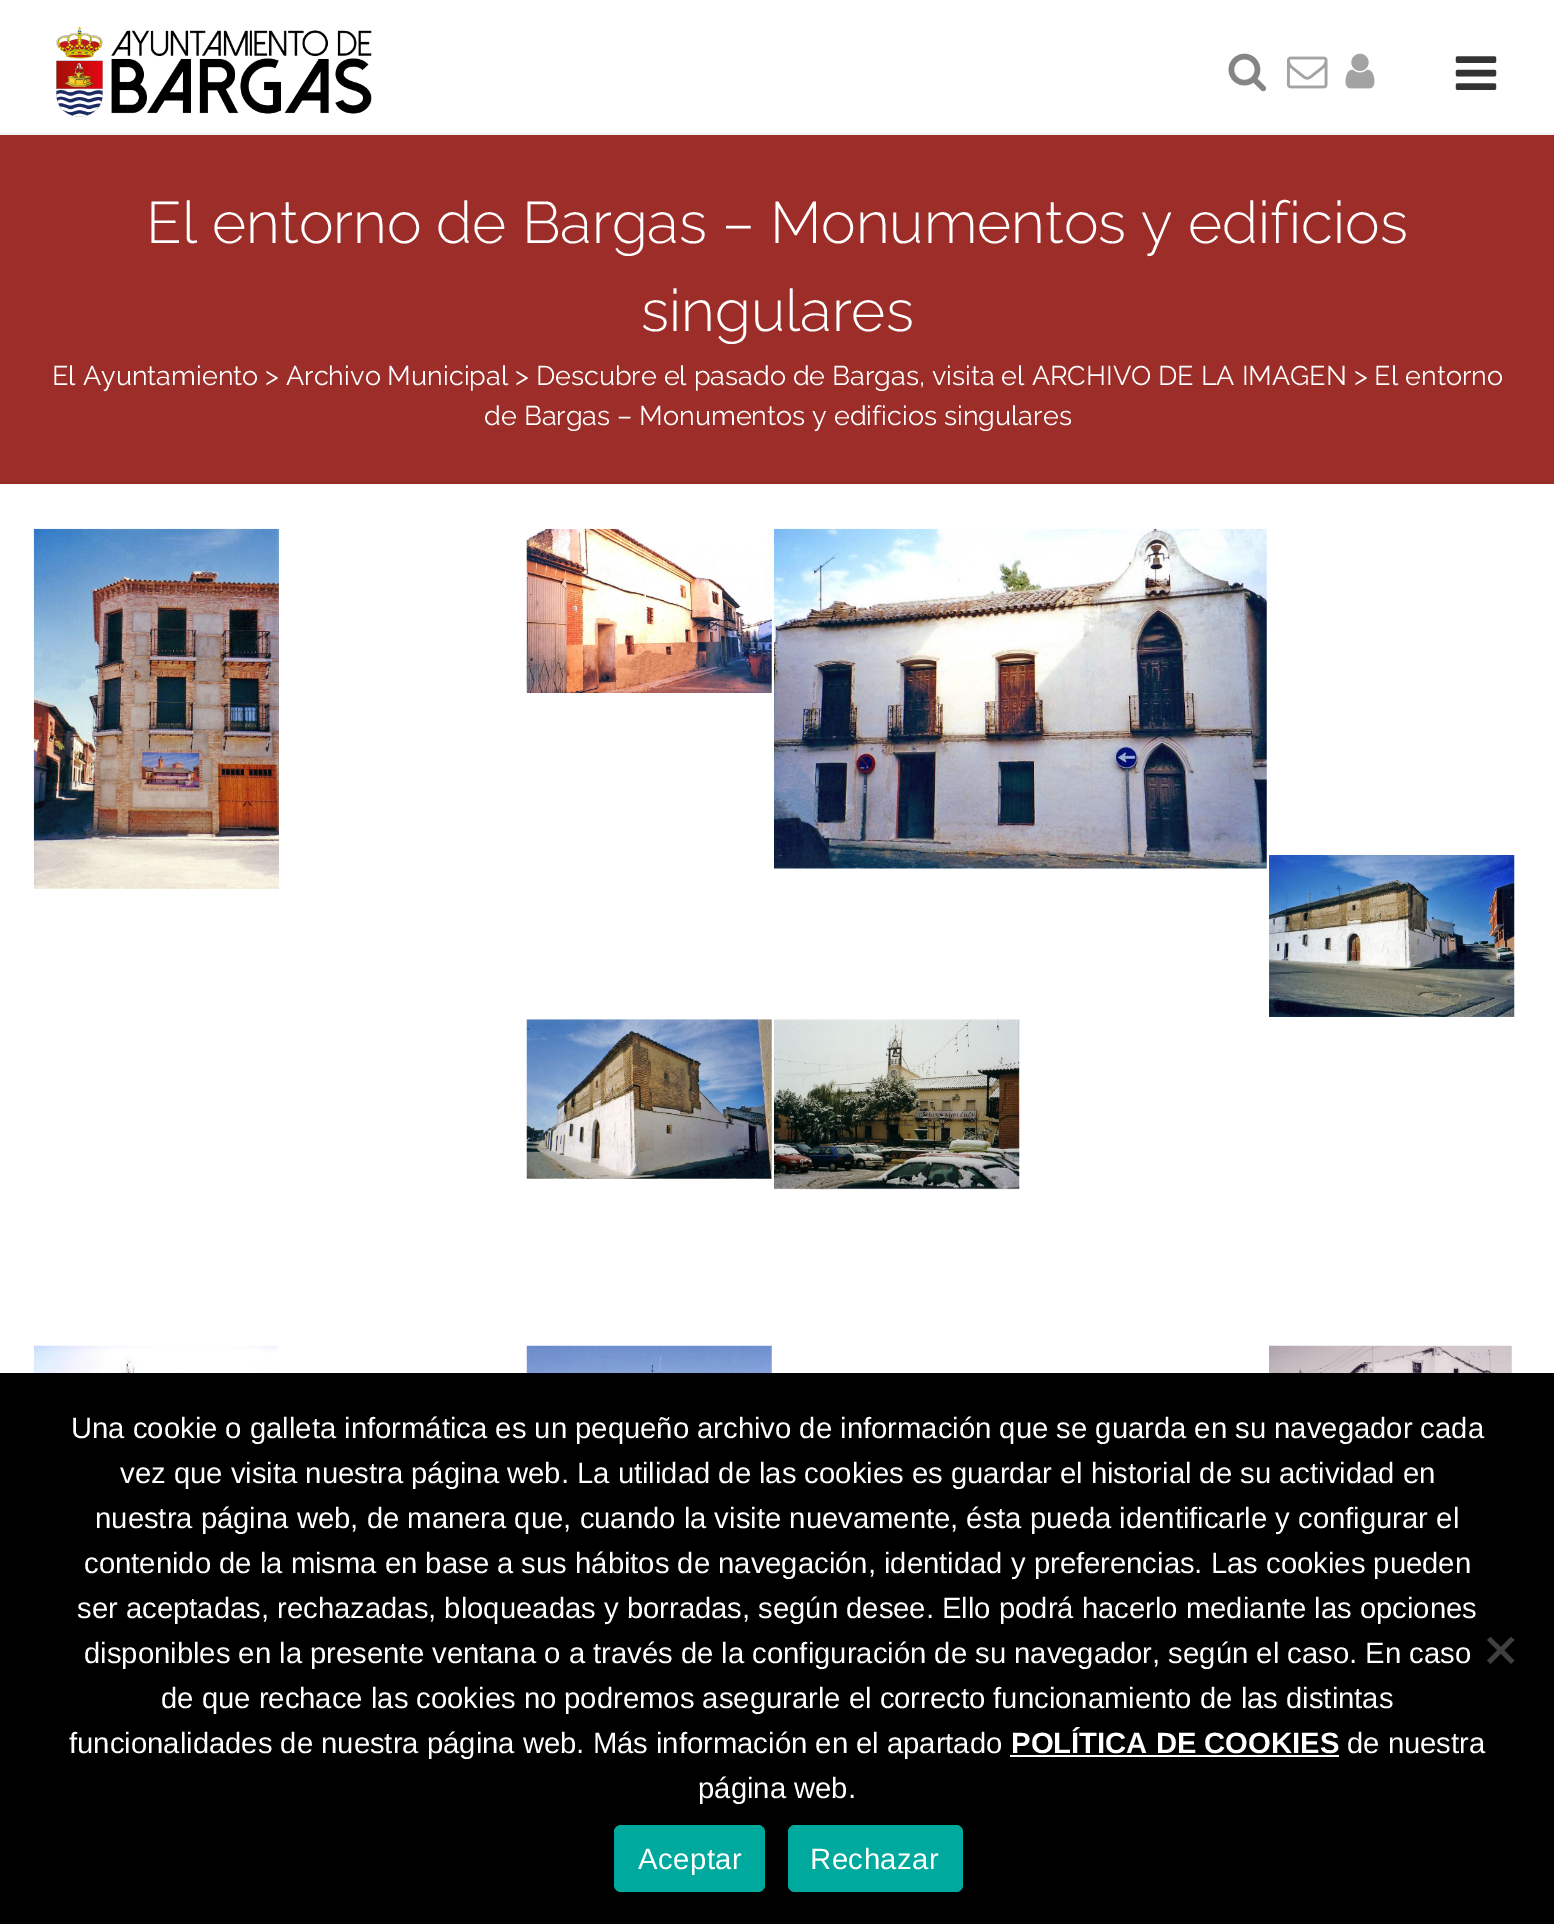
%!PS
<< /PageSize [1554 1924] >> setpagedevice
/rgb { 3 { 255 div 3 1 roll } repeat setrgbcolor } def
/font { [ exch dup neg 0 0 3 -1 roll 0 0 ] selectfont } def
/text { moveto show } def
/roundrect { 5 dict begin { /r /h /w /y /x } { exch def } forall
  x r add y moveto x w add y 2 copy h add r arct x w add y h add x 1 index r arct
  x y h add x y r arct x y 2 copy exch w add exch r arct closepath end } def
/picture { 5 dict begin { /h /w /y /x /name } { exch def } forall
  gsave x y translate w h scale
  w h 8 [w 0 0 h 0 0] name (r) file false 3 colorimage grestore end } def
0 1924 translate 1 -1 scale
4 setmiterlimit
255 255 255 rgb
0 0 1554 1924 rectfill
242 242 242 rgb
0 133 1554 2 rectfill
(img_01.rgb) 56 27 316 90 picture
(img_02.rgb) 1228 53 39 39 picture
(img_03.rgb) 1287 56 41 33 picture
(img_04.rgb) 1345 53 30 36 picture
(img_05.rgb) 1455 56 42 34 picture
157 45 41 rgb
0 135 1554 347 rectfill
149 43 39 rgb
0 482 1554 2 rectfill
(img_06.rgb) 33 528 246 361 picture
(img_07.rgb) 526 528 246 165 picture
(img_08.rgb) 774 528 493 341 picture
(img_09.rgb) 1269 855 246 162 picture
(img_10.rgb) 526 1019 246 160 picture
(img_11.rgb) 774 1019 246 171 picture
(img_12.rgb) 33 1345 246 28 picture
(img_13.rgb) 526 1345 246 28 picture
(img_14.rgb) 1269 1345 243 28 picture
0 0 0 rgb
0 1373 1554 551 rectfill
255 255 255 rgb
1010 1755 329 2 rectfill
64 64 64 rgb
1511 1637 moveto 3.5 3 rlineto -24 24 rlineto -3.5 -3.5 rlineto closepath fill
1487 1640 moveto 3.5 -3 rlineto 24 23.5 rlineto -3.5 3.5 rlineto closepath fill
0 169 157 rgb
614 1825 151 67 7 roundrect fill
788 1825 175 67 7 roundrect fill
/Raleway-Light 58.5 font
255 255 255 rgb
(El entorno de Bargas – Monumentos y edificios) 146 243 text
(singulares) 641 331 text
/Raleway-Regular 27 font
(El Ayuntamiento > Archivo Municipal > Descubre el pasado de Bargas, visita el ARCHIVO DE LA IMAGEN > El entorno) 52 385 text
(de Bargas – Monumentos y edificios singulares) 484 425 text
/LiberationSans-Regular 29.25 font
(Una cookie o galleta informática es un pequeño archivo de información que se guarda en su navegador cada) 71 1438 text
(vez que visita nuestra página web. La utilidad de las cookies es guardar el historial de su actividad en) 120 1483 text
(nuestra página web, de manera que, cuando la visite nuevamente, ésta pueda identificarle y configurar el) 95 1528 text
(contenido de la misma en base a sus hábitos de navegación, identidad y preferencias. Las cookies pueden) 84 1573 text
(ser aceptadas, rechazadas, bloqueadas y borradas, según desee. Ello podrá hacerlo mediante las opciones) 77 1618 text
(disponibles en la presente ventana o a través de la configuración de su navegador, según el caso. En caso) 84 1663 text
(de que rechace las cookies no podremos asegurarle el correcto funcionamiento de las distintas) 161 1708 text
(funcionalidades de nuestra página web. Más información en el apartado) 69 1753 text
/LiberationSans-Bold 29.25 font
(POLÍTICA DE COOKIES) 1011 1753 text
/LiberationSans-Regular 29.25 font
(de nuestra) 1347 1753 text
(página web.) 698 1798 text
638 1869 moveto 0.5 0 (Aceptar) ashow
810 1869 moveto 0.5 0 (Rechazar) ashow
showpage
